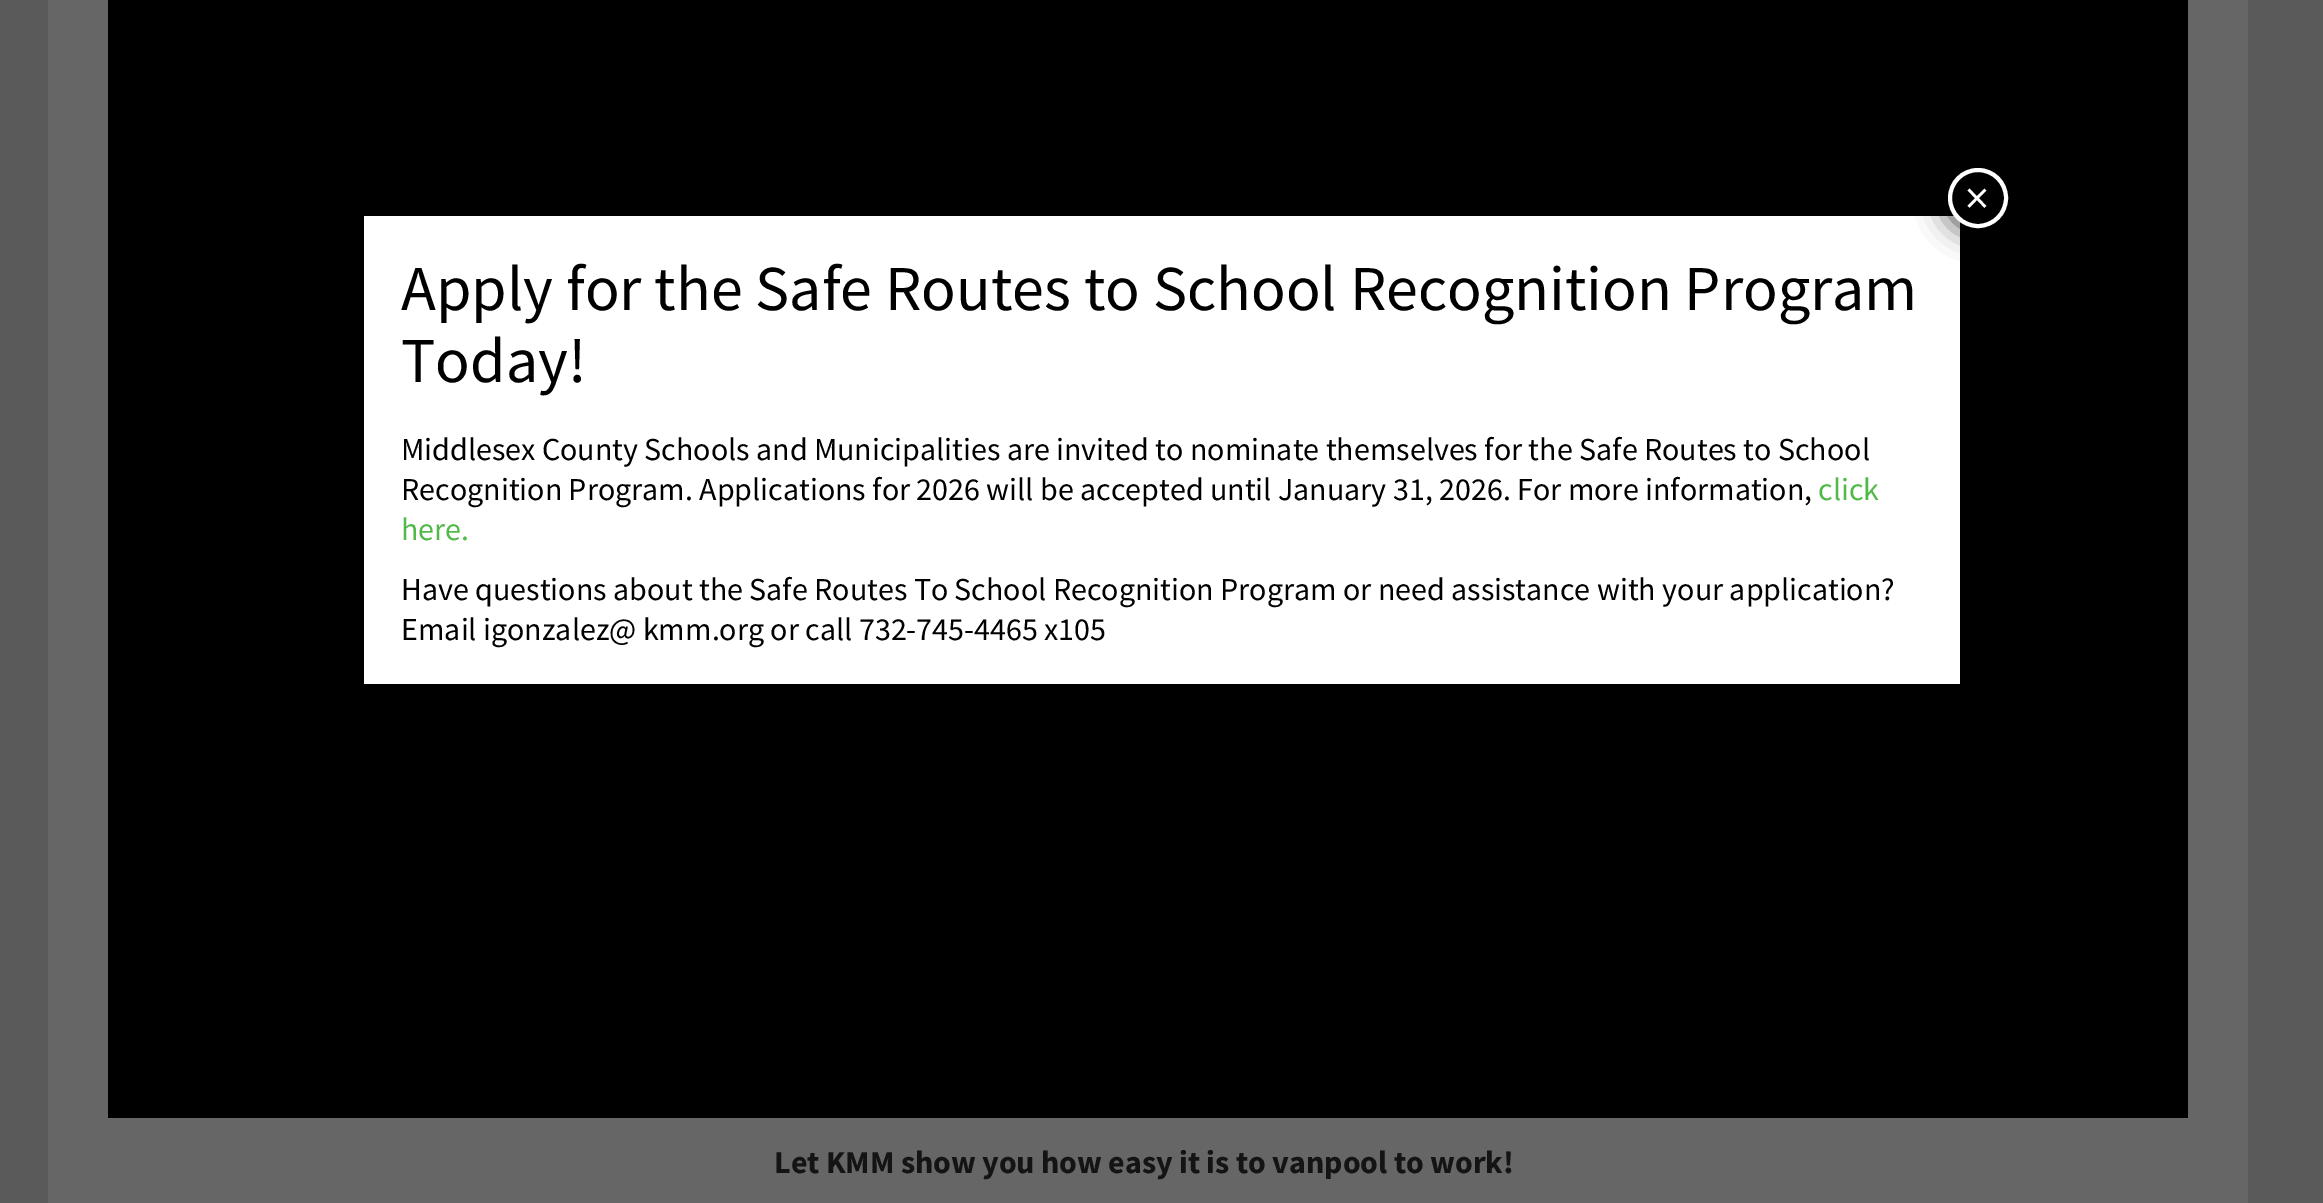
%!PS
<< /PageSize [2323 1203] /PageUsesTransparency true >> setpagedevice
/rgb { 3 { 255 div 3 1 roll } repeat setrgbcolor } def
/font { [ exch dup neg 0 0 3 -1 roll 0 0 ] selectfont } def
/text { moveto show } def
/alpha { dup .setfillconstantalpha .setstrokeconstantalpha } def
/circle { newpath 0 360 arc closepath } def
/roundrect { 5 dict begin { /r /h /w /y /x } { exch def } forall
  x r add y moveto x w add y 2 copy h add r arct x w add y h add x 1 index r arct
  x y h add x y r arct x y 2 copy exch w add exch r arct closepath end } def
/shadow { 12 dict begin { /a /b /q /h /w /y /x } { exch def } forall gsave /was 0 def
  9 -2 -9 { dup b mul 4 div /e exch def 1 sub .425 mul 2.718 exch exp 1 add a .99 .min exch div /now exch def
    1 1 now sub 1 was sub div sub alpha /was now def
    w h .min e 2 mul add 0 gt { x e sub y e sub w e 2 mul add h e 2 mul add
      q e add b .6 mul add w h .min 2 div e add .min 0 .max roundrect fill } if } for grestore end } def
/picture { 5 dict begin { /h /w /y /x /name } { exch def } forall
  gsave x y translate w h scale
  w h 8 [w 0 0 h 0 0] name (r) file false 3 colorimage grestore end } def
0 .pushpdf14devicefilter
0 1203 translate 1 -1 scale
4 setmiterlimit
90 90 90 rgb
0 0 2323 1203 rectfill
102 102 102 rgb
48 0 2200 1203 rectfill
(img_01.rgb) 108 0 2080 1118 picture
255 255 255 rgb
364 216 1596 468 rectfill
2 2 2 rgb
1946 166 64 64 32 15 0.75 shadow
0 0 0 rgb
1978 198 28 circle gsave fill grestore
255 255 255 rgb
4 setlinewidth
stroke
/SourceSansPro-Regular 48 font
(×) 1965 214 text
/SourceSansPro-Regular 64 font
0 0 0 rgb
(Apply for the Safe Routes to School Recognition Program) 401 310 text
(Today!) 401 382 text
/SourceSansPro-Regular 32 font
(Middlesex County Schools and Municipalities are invited to nominate themselves for the Safe Routes to School) 401 460 text
(Recognition Program. Applications for 2026 will be accepted until January 31, 2026. For more information,) 401 500 text
80 185 72 rgb
(click) 1818 500 text
(here.) 401 540 text
0 0 0 rgb
(Have questions about the Safe Routes To School Recognition Program or need assistance with your application?) 401 600 text
(Email igonzalez@ kmm.org or call 732-745-4465 x105) 401 640 text
/SourceSansPro-Bold 32 font
20 20 20 rgb
(Let KMM show you how easy it is to vanpool to work!) 774 1173 text
.poppdf14devicefilter showpage
